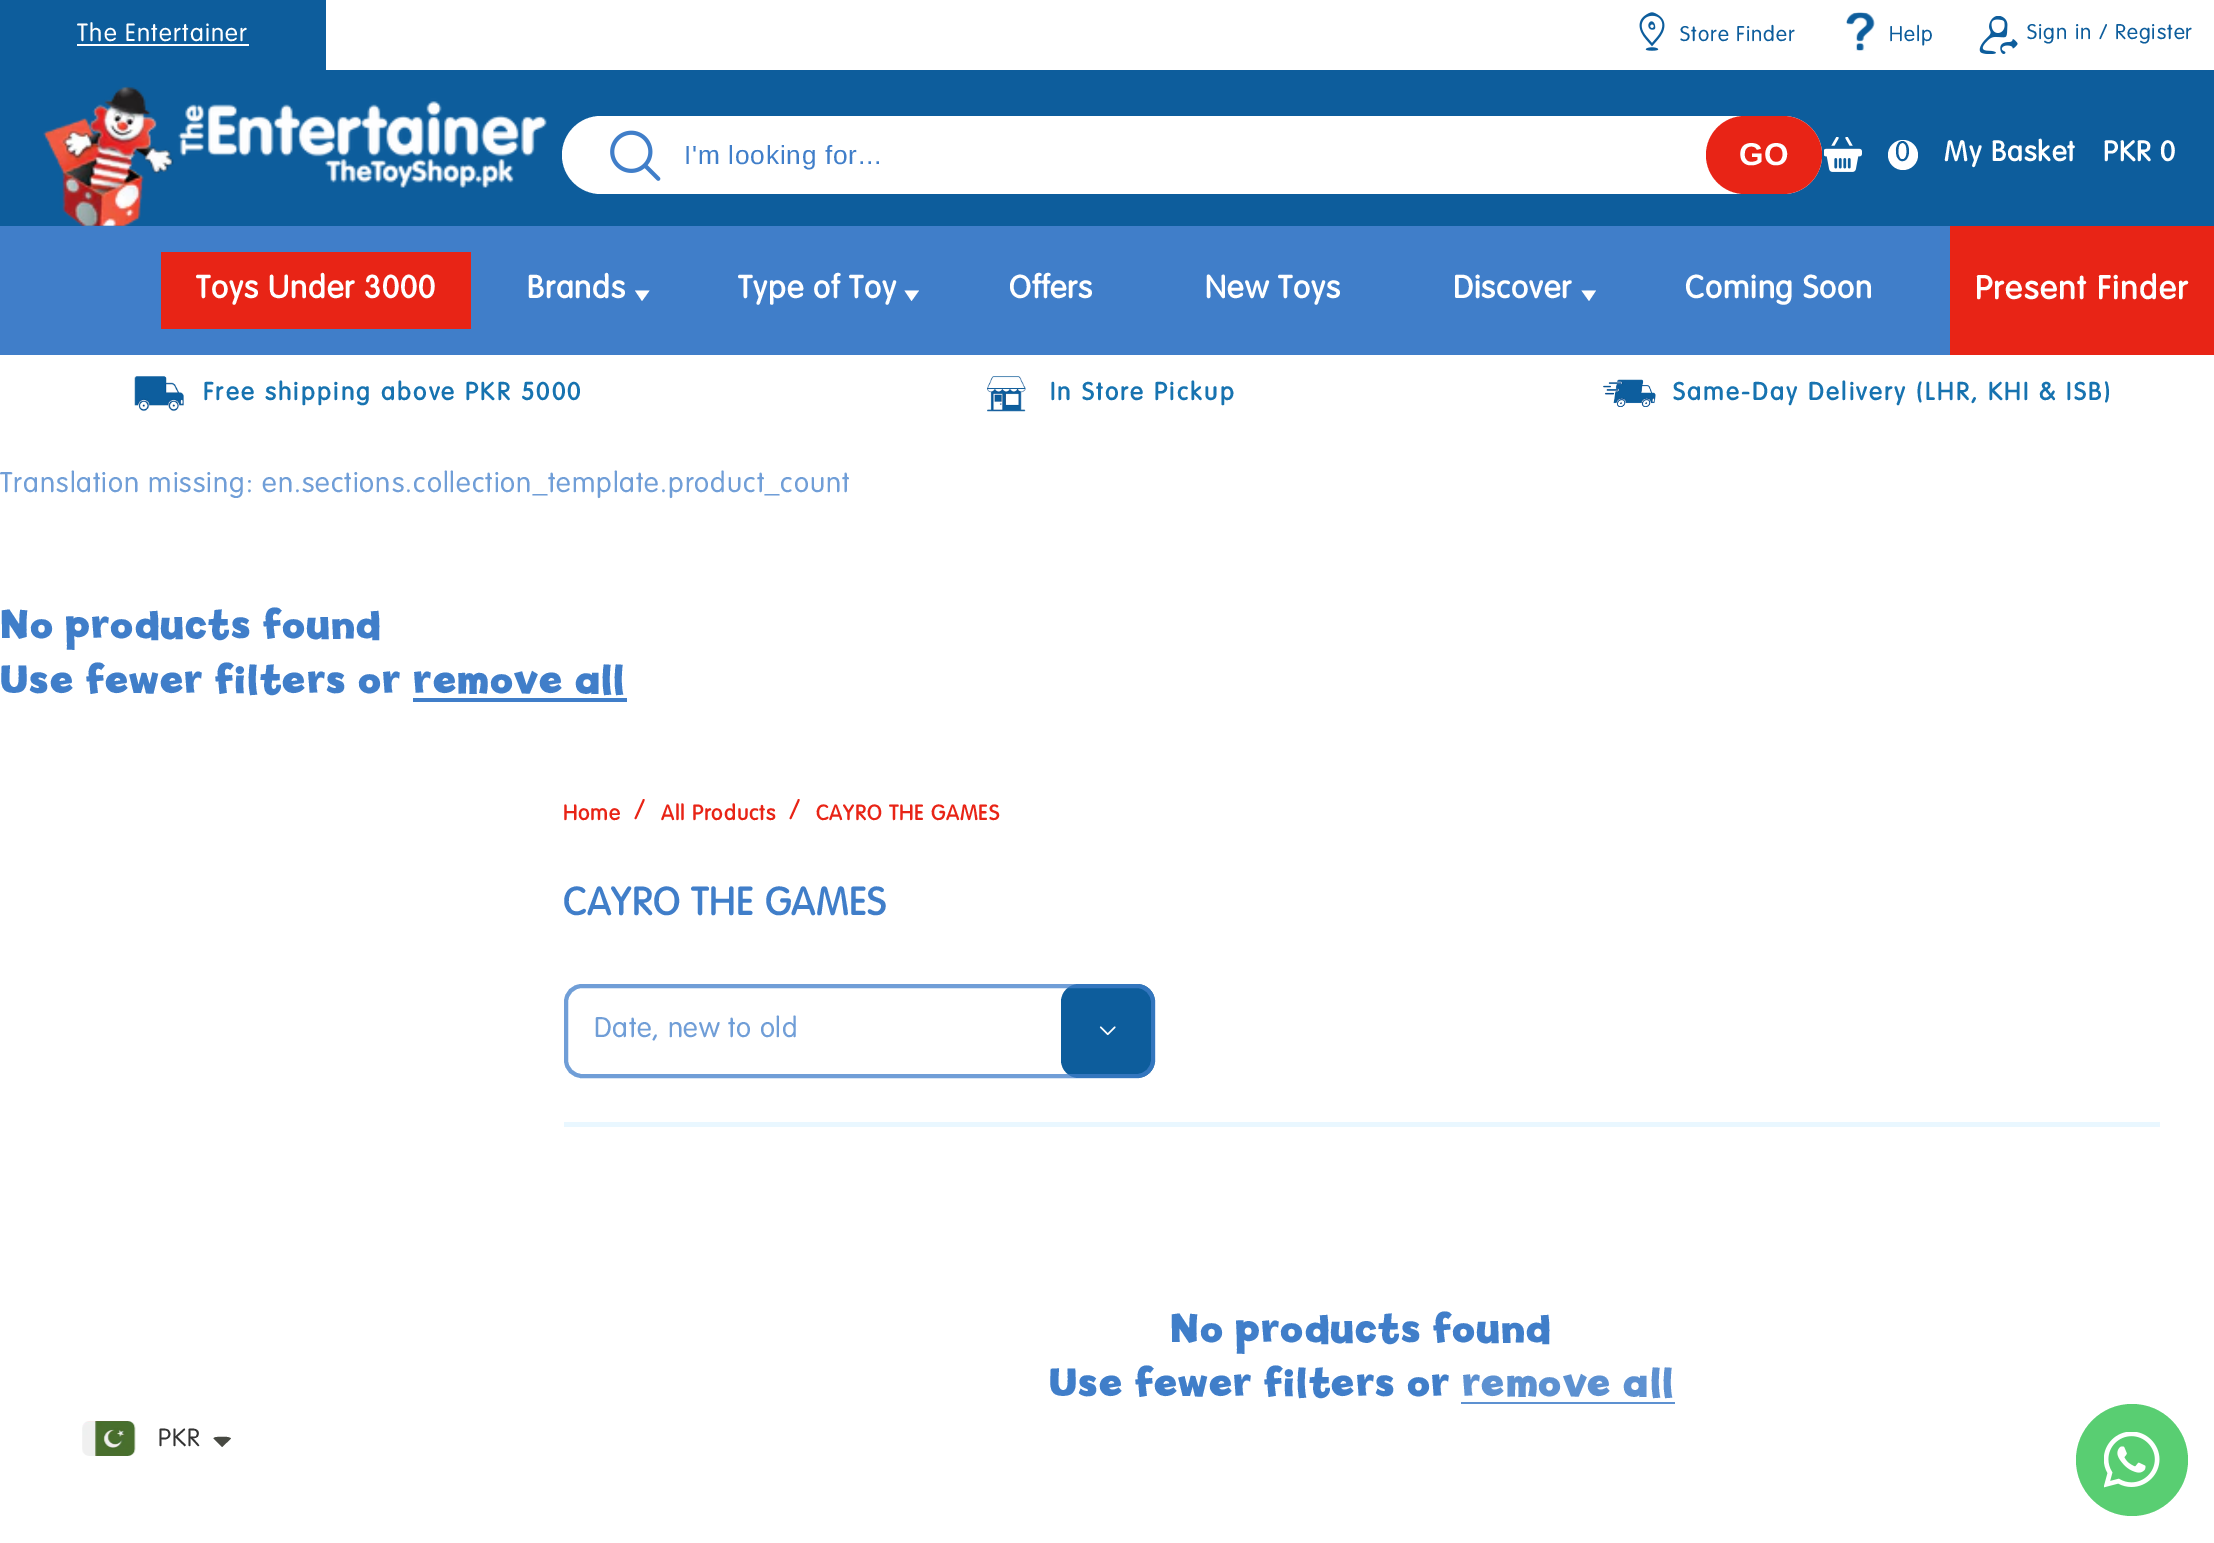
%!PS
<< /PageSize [2214 1543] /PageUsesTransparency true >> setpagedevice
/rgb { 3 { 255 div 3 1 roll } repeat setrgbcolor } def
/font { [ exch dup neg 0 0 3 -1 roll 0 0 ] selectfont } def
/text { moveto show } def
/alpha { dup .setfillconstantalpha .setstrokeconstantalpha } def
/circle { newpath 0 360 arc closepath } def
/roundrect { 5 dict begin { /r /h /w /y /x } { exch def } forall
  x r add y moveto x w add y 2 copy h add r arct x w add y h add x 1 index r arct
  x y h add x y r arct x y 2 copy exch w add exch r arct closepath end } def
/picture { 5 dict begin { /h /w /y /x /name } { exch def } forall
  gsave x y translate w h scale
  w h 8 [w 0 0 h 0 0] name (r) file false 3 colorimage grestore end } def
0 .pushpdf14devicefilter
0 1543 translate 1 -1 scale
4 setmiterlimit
255 255 255 rgb
0 0 2214 1543 rectfill
13 93 156 rgb
0 0 326 70 rectfill
255 255 255 rgb
77 44 172 2 rectfill
(img_01.rgb) 1639 12 26 39 picture
(img_02.rgb) 1846 12 29 39 picture
(img_03.rgb) 1979 16 39 38 picture
13 93 156 rgb
0 70 2214 156 rectfill
(img_04.rgb) 43 86 504 140 picture
255 255 255 rgb
562 116 1260 78 39 roundrect fill
(img_05.rgb) 610 130 51 51 picture
232 36 22 rgb
1706 116 116 78 39 roundrect fill
(img_06.rgb) 1824 137 38 35 picture
255 255 255 rgb
1903 155 15 circle fill
64 126 201 rgb
0 226 1950 129 rectfill
232 36 22 rgb
161 252 310 77 rectfill
255 255 255 rgb
642 301 moveto -7 -10.5 rlineto 14.5 0 rlineto closepath fill
911.5 301 moveto -7 -10.5 rlineto 14.5 0 rlineto closepath fill
1589 301 moveto -7.5 -10.5 rlineto 14.5 0 rlineto closepath fill
232 36 22 rgb
1950 226 264 129 rectfill
(img_07.rgb) 134 376 50 36 picture
(img_08.rgb) 987 376 39 36 picture
(img_09.rgb) 1603 379 53 28 picture
64 126 201 rgb
413 698 214 4 rectfill
13 93 156 rgb
1061 984 94 94 18 roundrect fill
(img_10.rgb) 1099 1026 17 10 picture
0.75 alpha
64 126 201 rgb
4 setlinewidth
566 986 587 90 16 roundrect stroke
1 alpha
233 247 255 rgb
564 1122 1596 5 rectfill
93 145 209 rgb
1461 1402 214 2 rectfill
(img_11.rgb) 82 1421 54 35 picture
71 73 66 rgb
217 1437 moveto 3.5 0 11.5 -1 14 1.5 rcurveto -9 8.5 rlineto -8.5 -8.5 rlineto 0.5 -1 2 -1.5 3.5 -1.5 rcurveto closepath fill
89 206 114 rgb
2132 1460 56 circle fill
(img_12.rgb) 2104 1432 56 56 picture
/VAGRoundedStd-Light 24.5 font
255 255 255 rgb
77 41 moveto 1.25 0 (The Entertainer) ashow
/VAGRoundedStd-Light 21 font
13 93 156 rgb
1680 41 moveto 1.05 0 (Store Finder) ashow
1889 41 moveto 1.05 0 (Help) ashow
2027 39 moveto 1.05 0 (Sign in / Register) ashow
/LiberationSans-Regular 26.25 font
64 126 201 rgb
684 164 moveto 0.75 0 (I'm looking for...) ashow
/LiberationSans-Bold 31.5 font
255 255 255 rgb
(GO) 1739 165 text
/VAGRoundedStd-Light 28 font
13 93 156 rgb
1895 161 moveto 1.25 0 (0) ashow
/VAGRoundedStd-Bold 28 font
255 255 255 rgb
1944 161 moveto 1.25 0 (My Basket) ashow
2103 161 moveto 1.25 0 (PKR 0) ashow
/VAGRoundedStd-Bold 31.5 font
196 298 moveto 1.05 0 (Toys Under 3000) ashow
527 298 moveto 1.05 0 (Brands) ashow
738 298 moveto 1.05 0 (Type of Toy) ashow
1009 298 moveto 1.05 0 (Offers) ashow
1205 298 moveto 1.05 0 (New Toys) ashow
1453 298 moveto 1.05 0 (Discover) ashow
1685 298 moveto 1.05 0 (Coming Soon) ashow
/VAGRoundedStd-Bold 32.5 font
1975 299 moveto 1.6 0 (Present Finder) ashow
/VAGRoundedStd-Bold 24.5 font
23 115 176 rgb
203 400 moveto 2.45 0 (Free shipping above PKR 5000) ashow
1050 400 moveto 2.45 0 (In Store Pickup) ashow
1673 400 moveto 2.45 0 (Same-Day Delivery \(LHR, KHI & ISB\)) ashow
/VAGRoundedStd-Light 28 font
112 158 215 rgb
0 492 moveto 1.05 0 (Translation missing: en.sections.collection_template.product_count) ashow
/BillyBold-Bold 42 font
64 126 201 rgb
0 638 moveto 1.05 0 (No products found) ashow
0 693 moveto 1.05 0 (Use fewer filters or remove all) ashow
/VAGRoundedStd-Bold 21 font
232 36 22 rgb
563 820 moveto 1.05 0 (Home) ashow
/VAGRoundedStd-Light 28 font
634 819 moveto 1.05 0 (/) ashow
/VAGRoundedStd-Bold 21 font
661 820 moveto 1.05 0 (All Products) ashow
/VAGRoundedStd-Light 28 font
789 819 moveto 1.05 0 (/) ashow
/VAGRoundedStd-Bold 21 font
816 820 moveto 1.05 0 (CAYRO THE GAMES) ashow
/VAGRoundedStd-Bold 38.5 font
64 126 201 rgb
563 915 moveto 1.05 0 (CAYRO THE GAMES) ashow
/VAGRoundedStd-Light 28 font
112 158 215 rgb
594 1037 moveto 0.75 0 (Date, new to old) ashow
/BillyBold-Bold 42 font
64 126 201 rgb
1170 1342 moveto 1.05 0 (No products found) ashow
1049 1396 moveto 1.05 0 (Use fewer filters or) ashow
93 145 209 rgb
1462 1396 moveto 1.05 0 (remove all) ashow
/VAGRoundedStd-Light 24.5 font
51 51 51 rgb
158 1446 moveto 1.05 0 (PKR) ashow
.poppdf14devicefilter showpage
